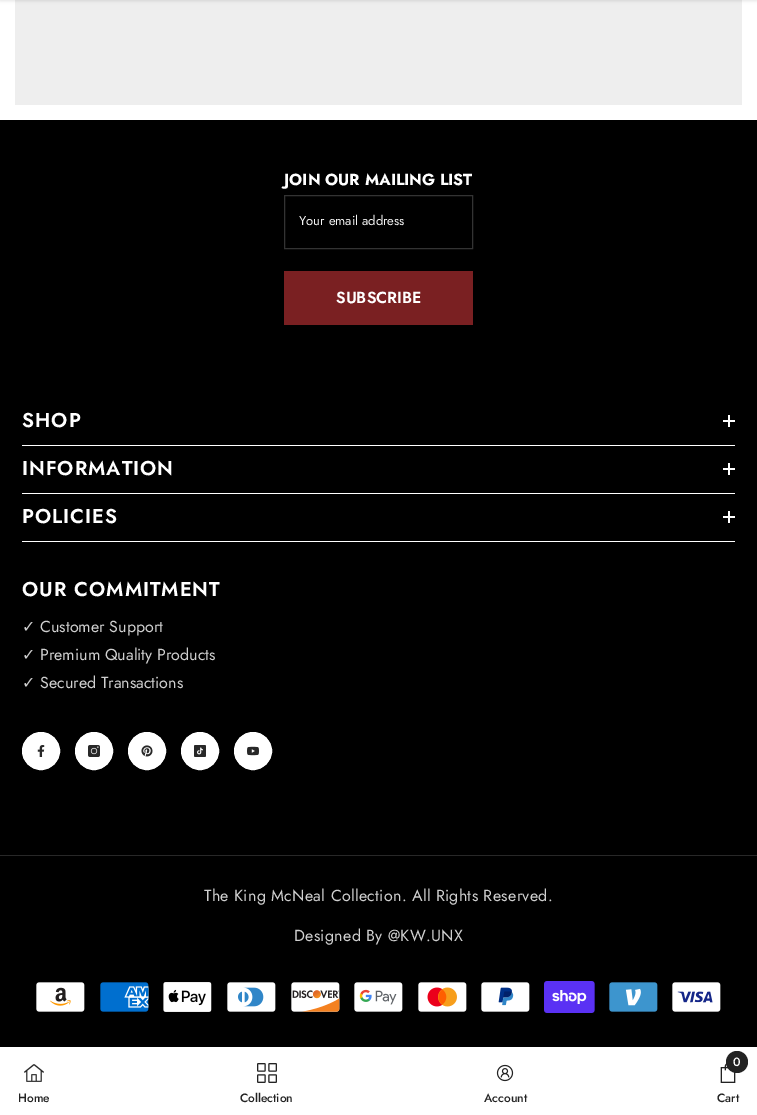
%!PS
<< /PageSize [757 1115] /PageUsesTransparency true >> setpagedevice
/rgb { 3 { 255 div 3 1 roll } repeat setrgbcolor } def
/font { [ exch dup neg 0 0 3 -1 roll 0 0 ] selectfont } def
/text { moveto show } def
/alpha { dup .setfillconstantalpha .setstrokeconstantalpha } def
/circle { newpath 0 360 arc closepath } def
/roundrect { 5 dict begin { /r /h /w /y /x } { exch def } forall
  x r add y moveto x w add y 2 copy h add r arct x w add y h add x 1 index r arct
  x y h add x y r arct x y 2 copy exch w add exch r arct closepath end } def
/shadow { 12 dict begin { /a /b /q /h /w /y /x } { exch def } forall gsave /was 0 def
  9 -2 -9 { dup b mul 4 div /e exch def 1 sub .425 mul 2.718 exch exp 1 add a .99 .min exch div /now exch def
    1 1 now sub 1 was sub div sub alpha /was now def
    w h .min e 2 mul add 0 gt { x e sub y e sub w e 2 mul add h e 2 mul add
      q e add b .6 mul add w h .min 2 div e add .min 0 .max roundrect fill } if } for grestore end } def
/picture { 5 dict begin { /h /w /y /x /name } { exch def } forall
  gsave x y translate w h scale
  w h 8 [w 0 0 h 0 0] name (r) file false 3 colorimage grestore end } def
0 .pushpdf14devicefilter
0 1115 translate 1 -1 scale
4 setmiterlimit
255 255 255 rgb
0 0 757 1115 rectfill
238 238 238 rgb
15 0 727 105 rectfill
0 0 0 rgb
0 -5 757 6 0 1.5 0.1 shadow
0 120 757 735 rectfill
51 51 51 rgb
284.5 195.5 188 53 rectstroke
122 32 34 rgb
284 271 189 54 rectfill
255 255 255 rgb
22 445 713 1 rectfill
728 415 2 12 rectfill
723 420 12 2 rectfill
22 493 713 1 rectfill
728 463 2 12 rectfill
723 468 12 2 rectfill
22 541 713 1 rectfill
728 511 2 12 rectfill
723 516 12 2 rectfill
41 751 18.5 circle gsave fill grestore
stroke
(img_01.rgb) 37 745 8 12 picture
94 751 18.5 circle gsave fill grestore
stroke
(img_02.rgb) 88 745 12 12 picture
147 751 18.5 circle gsave fill grestore
stroke
(img_03.rgb) 141 745 12 12 picture
200 751 18.5 circle gsave fill grestore
stroke
(img_04.rgb) 194 745 12 12 picture
253 751 18.5 circle gsave fill grestore
stroke
(img_05.rgb) 247 746 12 10 picture
0 0 0 rgb
0 856 757 191 rectfill
40 40 40 rgb
0 855 757 1 rectfill
(img_06.rgb) 36 982 49 30 picture
(img_07.rgb) 100 982 49 30 picture
(img_08.rgb) 163 982 49 30 picture
(img_09.rgb) 227 982 49 30 picture
(img_10.rgb) 291 982 49 30 picture
(img_11.rgb) 354 982 49 30 picture
(img_12.rgb) 418 982 49 30 picture
(img_13.rgb) 481 982 49 30 picture
(img_14.rgb) 544 981 51 32 picture
(img_15.rgb) 609 982 49 30 picture
(img_16.rgb) 672 982 49 30 picture
(img_17.rgb) 24 1064 20 18 picture
(img_18.rgb) 257 1063 20 20 picture
(img_19.rgb) 496 1064 18 18 picture
(img_20.rgb) 720 1063 16 20 picture
35 35 35 rgb
737 1062 11 circle fill
/Jost-Bold 16 font
255 255 255 rgb
(JOIN OUR MAILING LIST) 284 185 text
/Jost-Regular 13 font
245 245 245 rgb
(Your email address) 299 225 text
/Jost-SemiBold 16 font
255 255 255 rgb
(SUBSCRIBE) 336 303 text
/Jost-SemiBold 20 font
22 427 moveto 1 0 (SHOP) ashow
22 475 moveto 1 0 (INFORMATION) ashow
22 523 moveto 1 0 (POLICIES) ashow
22 596 moveto 1 0 (OUR COMMITMENT) ashow
/DejaVuSans-Regular 16 font
207 207 207 rgb
(✓) 22 632 text
/Jost-Regular 16 font
(Customer Support) 40 632 text
/DejaVuSans-Regular 16 font
(✓) 22 660 text
/Jost-Regular 16 font
(Premium Quality Products) 40 660 text
/DejaVuSans-Regular 16 font
(✓) 22 688 text
/Jost-Regular 16 font
(Secured Transactions) 40 688 text
204 901 moveto 0.3 0 (The King McNeal Collection. All Rights Reserved.) ashow
294 941 moveto 0.3 0 (Designed By @KW.UNX) ashow
/Jost-Medium 12 font
35 35 35 rgb
(Home) 18 1102 text
(Collection) 240 1102 text
(Account) 484 1102 text
255 255 255 rgb
(0) 733 1066 text
35 35 35 rgb
(Cart) 717 1102 text
.poppdf14devicefilter showpage
